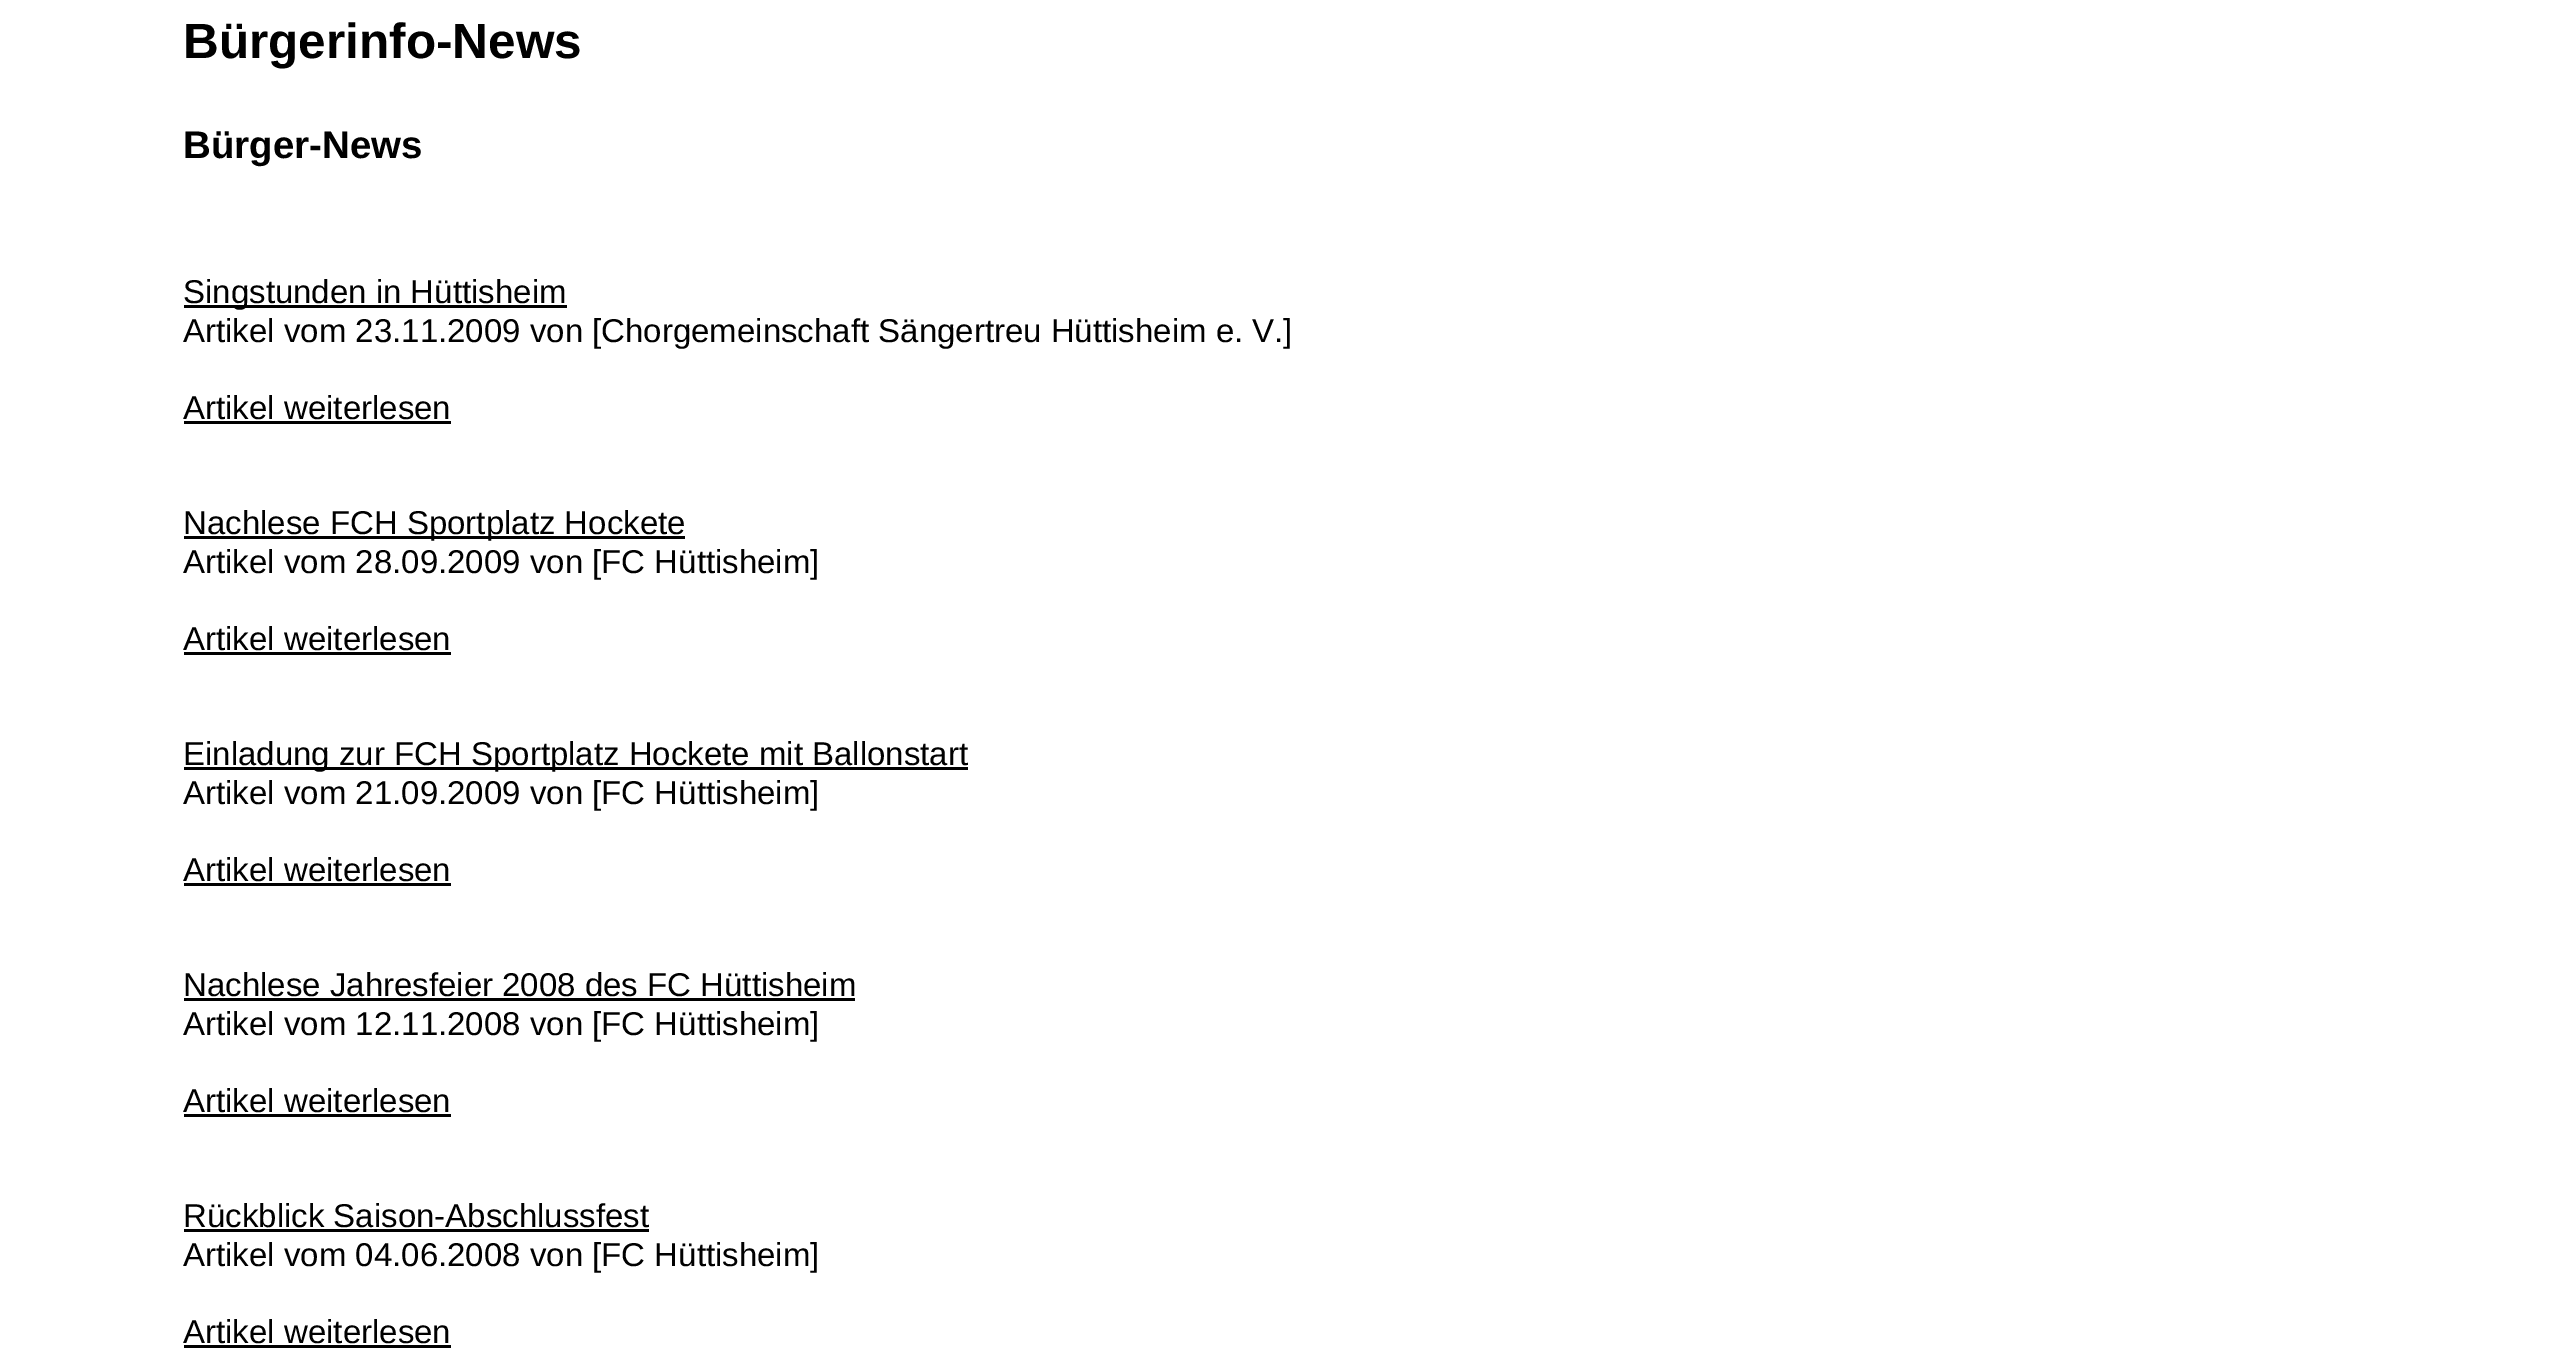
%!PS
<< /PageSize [2565 1351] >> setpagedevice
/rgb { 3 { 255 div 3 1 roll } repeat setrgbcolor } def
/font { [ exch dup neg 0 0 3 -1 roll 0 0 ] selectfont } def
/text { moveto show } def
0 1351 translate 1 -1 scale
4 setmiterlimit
255 255 255 rgb
0 0 2565 1351 rectfill
0 0 0 rgb
184 305 383 3 rectfill
184 421 267 3 rectfill
184 536 501 3 rectfill
184 652 267 3 rectfill
184 767 784 3 rectfill
184 883 267 3 rectfill
184 998 671 3 rectfill
184 1114 267 3 rectfill
184 1229 465 3 rectfill
184 1345 267 3 rectfill
/LiberationSans-Bold 49.5 font
(Bürgerinfo-News) 183 58 text
/LiberationSans-Bold 38.5 font
(Bürger-News) 183 158 text
/LiberationSans-Regular 33 font
(Singstunden in Hüttisheim) 183 303 text
(Artikel vom 23.11.2009 von [Chorgemeinschaft Sängertreu Hüttisheim e. V.]) 183 342 text
(Artikel weiterlesen) 183 419 text
(Nachlese FCH Sportplatz Hockete) 183 534 text
(Artikel vom 28.09.2009 von [FC Hüttisheim]) 183 573 text
(Artikel weiterlesen) 183 650 text
(Einladung zur FCH Sportplatz Hockete mit Ballonstart) 183 765 text
(Artikel vom 21.09.2009 von [FC Hüttisheim]) 183 804 text
(Artikel weiterlesen) 183 881 text
(Nachlese Jahresfeier 2008 des FC Hüttisheim) 183 996 text
(Artikel vom 12.11.2008 von [FC Hüttisheim]) 183 1035 text
(Artikel weiterlesen) 183 1112 text
(Rückblick Saison-Abschlussfest) 183 1227 text
(Artikel vom 04.06.2008 von [FC Hüttisheim]) 183 1266 text
(Artikel weiterlesen) 183 1343 text
showpage
